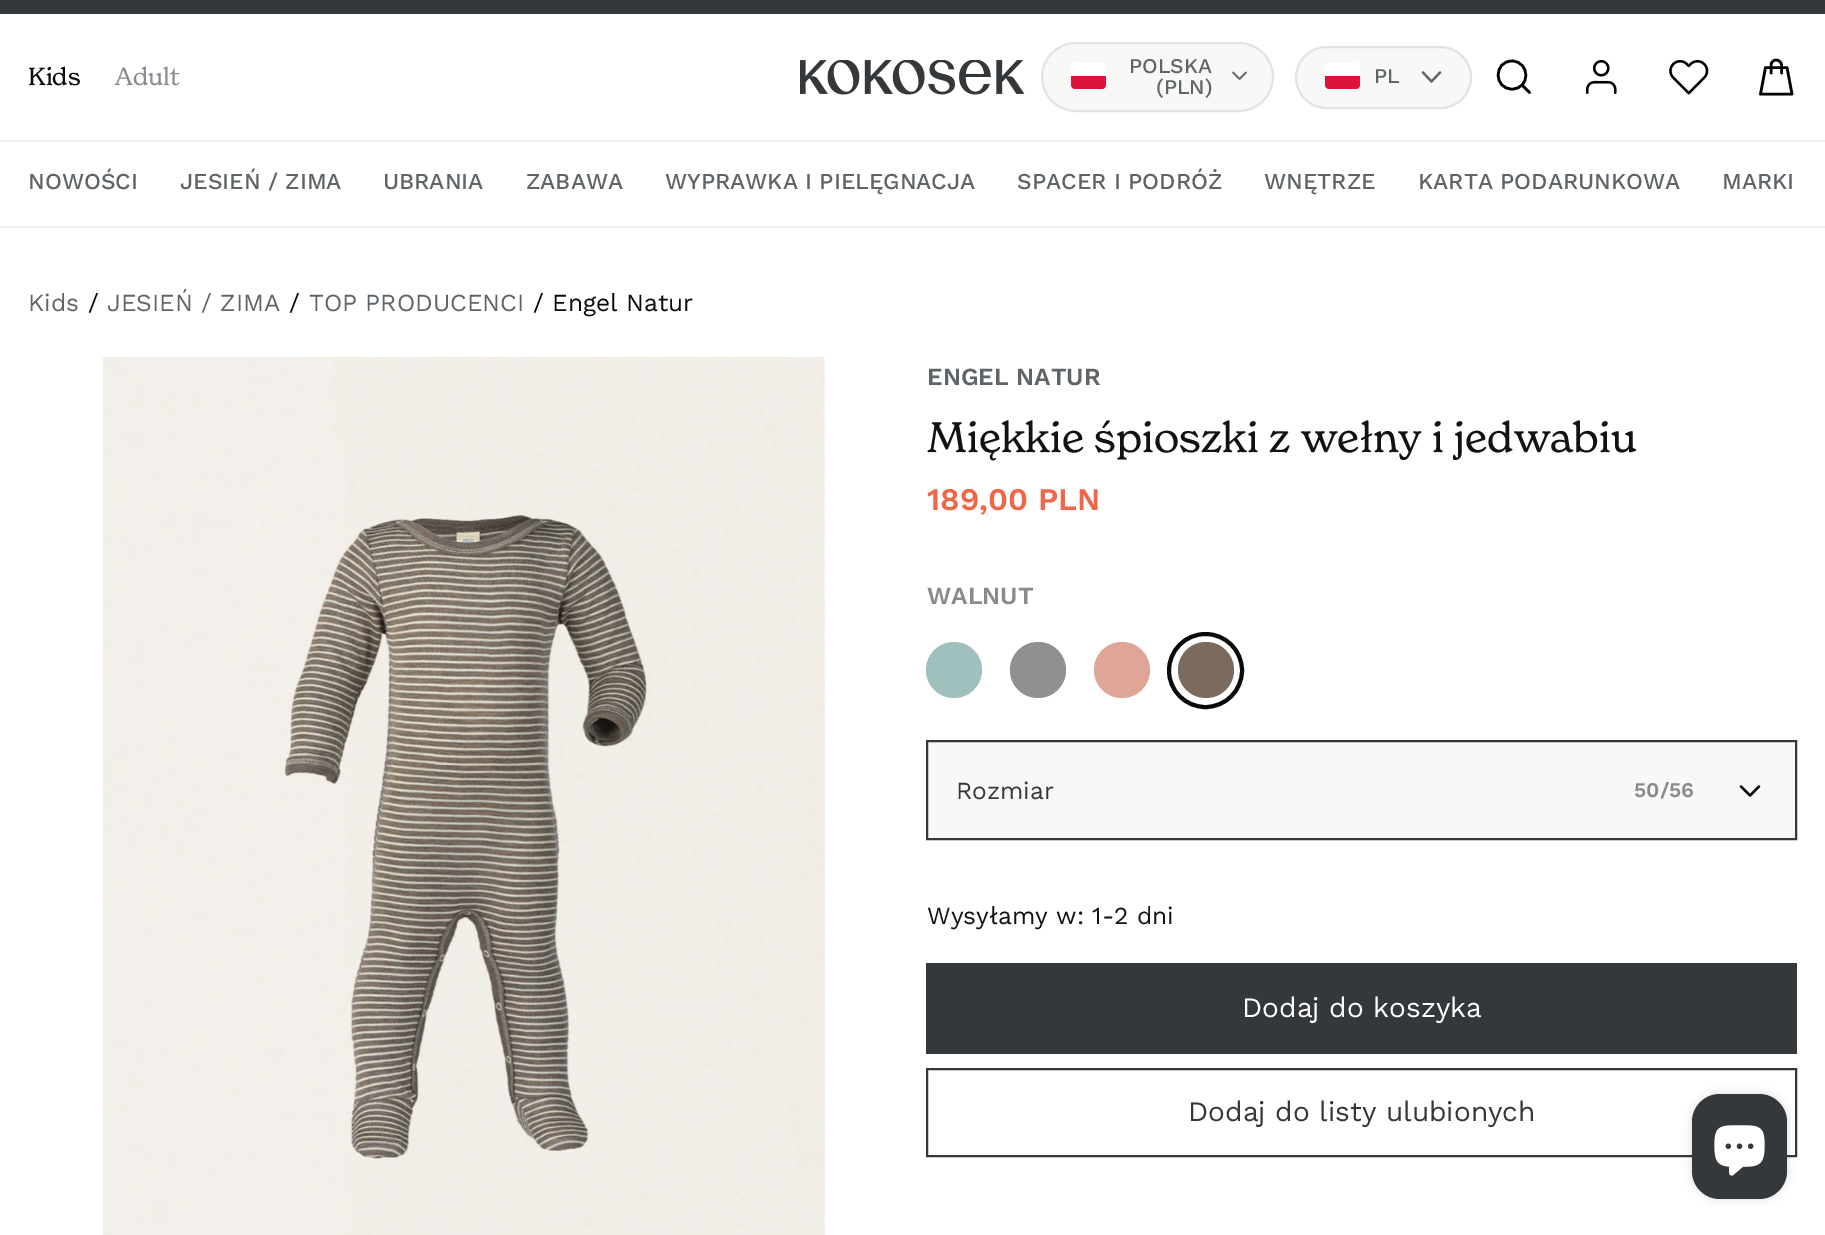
%!PS
<< /PageSize [1825 1235] /PageUsesTransparency true >> setpagedevice
/rgb { 3 { 255 div 3 1 roll } repeat setrgbcolor } def
/font { [ exch dup neg 0 0 3 -1 roll 0 0 ] selectfont } def
/text { moveto show } def
/alpha { dup .setfillconstantalpha .setstrokeconstantalpha } def
/circle { newpath 0 360 arc closepath } def
/roundrect { 5 dict begin { /r /h /w /y /x } { exch def } forall
  x r add y moveto x w add y 2 copy h add r arct x w add y h add x 1 index r arct
  x y h add x y r arct x y 2 copy exch w add exch r arct closepath end } def
/shadow { 12 dict begin { /a /b /q /h /w /y /x } { exch def } forall gsave /was 0 def
  9 -2 -9 { dup b mul 4 div /e exch def 1 sub .425 mul 2.718 exch exp 1 add a .99 .min exch div /now exch def
    1 1 now sub 1 was sub div sub alpha /was now def
    w h .min e 2 mul add 0 gt { x e sub y e sub w e 2 mul add h e 2 mul add
      q e add b .6 mul add w h .min 2 div e add .min 0 .max roundrect fill } if } for grestore end } def
/picture { 5 dict begin { /h /w /y /x /name } { exch def } forall
  gsave x y translate w h scale
  w h 8 [w 0 0 h 0 0] name (r) file false 3 colorimage grestore end } def
0 .pushpdf14devicefilter
0 1235 translate 1 -1 scale
4 setmiterlimit
255 255 255 rgb
0 0 1825 1235 rectfill
53 56 58 rgb
0 0 1825 14 rectfill
(img_01.rgb) 800 60 225 35 picture
248 248 247 rgb
1042 43 231 68 34 roundrect gsave fill grestore
226 227 228 rgb
2 setlinewidth
stroke
255 255 255 rgb
1071 63 35 26 4 roundrect fill
220 20 60 rgb
1071 76 moveto 35 0 rlineto 0 9 rlineto 0 2 -2 4 -4 4 rcurveto -27 0 rlineto -2 0 -4 -2 -4 -4 rcurveto closepath fill
95 100 104 rgb
1.6 setlinewidth
1 setlinecap
1 setlinejoin
1233 72.5 moveto 6.5 6.5 rlineto 6.5 -6.5 rlineto stroke
248 248 247 rgb
1296 47 175 61 30.5 roundrect gsave fill grestore
226 227 228 rgb
2 setlinewidth
0 setlinecap
0 setlinejoin
stroke
255 255 255 rgb
1325 63 35 26 4 roundrect fill
220 20 60 rgb
1325 76 moveto 35 0 rlineto 0 9 rlineto 0 2 -2 4 -4 4 rcurveto -27 0 rlineto -2 0 -4 -2 -4 -4 rcurveto closepath fill
95 100 104 rgb
2.2 setlinewidth
1 setlinecap
1 setlinejoin
1423 72.5 moveto 8.5 9 rlineto 8.5 -9 rlineto stroke
0 0 0 rgb
2.6 setlinewidth
1512 89 moveto 18.5 0 18.5 -27.5 0 -28 rcurveto -18.5 0 -18.5 28 0 28 rcurveto closepath 1529.5 92.5 moveto -7.5 -7.5 rlineto stroke
(img_02.rgb) 1585 59 32 35 picture
(img_03.rgb) 1669 59 40 36 picture
0 setlinecap
1792 94 moveto -31.5 0 rlineto 5 -26.5 rlineto 21.5 0 rlineto closepath stroke
1 setlinecap
1781.5 73 moveto 0 -8 rlineto 0 -2.5 -2.5 -5 -5.5 -5 rcurveto -2.5 0 -5 2.5 -5 5 rcurveto 0 8 rlineto stroke
240 240 239 rgb
0 140 1825 2 rectfill
0 226 1825 2 rectfill
(img_05.rgb) 823 357 2 878 picture
(img_04.rgb) 103 357 722 878 picture
160 192 190 rgb
954 670 28 circle fill
144 144 143 rgb
1038 670 28 circle fill
223 165 151 rgb
1122 670 28 circle fill
122 107 94 rgb
1206 670 28 circle fill
10 10 11 rgb
4 setlinewidth
0 setlinecap
0 setlinejoin
1205.5 670.5 36.5 circle stroke
248 248 247 rgb
927 741 moveto 869 0 rlineto 0 98 rlineto -869 0 rlineto closepath gsave fill grestore
53 56 58 rgb
2 setlinewidth
stroke
10 10 11 rgb
2.2 setlinewidth
1 setlinecap
1 setlinejoin
1741 786.5 moveto 9 9 rlineto 9 -9 rlineto stroke
53 56 58 rgb
926 963 871 91 rectfill
2 setlinewidth
0 setlinecap
0 setlinejoin
927 1069 869 87 rectstroke
0 0 0 rgb
1692 1094 95 105 28 4.5 0.15 shadow
53 56 58 rgb
1692 1094 95 105 28 roundrect fill
(img_06.rgb) 1714 1125 51 51 picture
/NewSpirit-Regular 24.5 font
10 10 11 rgb
(Kids) 28 85 text
135 141 145 rgb
(Adult) 115 85 text
/WorkSans-Medium 21 font
95 100 104 rgb
(POLSKA) 1129 73 text
(\(PLN\)) 1156 94 text
(PL) 1374 83 text
/WorkSans-Medium 22.75 font
(NOWOŚCI) 28 189 text
(JESIEŃ / ZIMA) 180 189 text
(UBRANIA) 383 189 text
(ZABAWA) 526 189 text
(WYPRAWKA I PIELĘGNACJA) 665 189 text
(SPACER I PODRÓŻ) 1017 189 text
(WNĘTRZE) 1264 189 text
(KARTA PODARUNKOWA) 1418 189 text
(MARKI) 1722 189 text
/WorkSans-Regular 24.5 font
(Kids) 28 311 text
0 0 0 rgb
(/) 88 311 text
95 100 104 rgb
(JESIEŃ / ZIMA) 107 311 text
0 0 0 rgb
(/) 289 311 text
95 100 104 rgb
(TOP PRODUCENCI) 309 311 text
0 0 0 rgb
(/) 533 311 text
10 10 11 rgb
(Engel Natur) 552 311 text
/WorkSans-SemiBold 24.5 font
95 100 104 rgb
(ENGEL NATUR) 927 385 text
/NewSpirit-Regular 42 font
18 18 18 rgb
(Miękkie śpioszki z wełny i jedwabiu) 927 452 text
/WorkSans-SemiBold 31.5 font
239 102 72 rgb
(189,00 PLN) 927 510 text
/WorkSans-SemiBold 24.5 font
138 138 138 rgb
(WALNUT) 927 604 text
/WorkSans-Regular 24.5 font
53 56 58 rgb
(Rozmiar) 956 799 text
/WorkSans-SemiBold 21 font
138 138 138 rgb
(50/56) 1634 797 text
/WorkSans-Regular 24.5 font
18 18 18 rgb
(Wysyłamy w: 1-2 dni) 927 924 text
/WorkSans-Regular 28 font
255 255 255 rgb
(Dodaj do koszyka) 1242 1017 text
53 56 58 rgb
(Dodaj do listy ulubionych) 1188 1121 text
.poppdf14devicefilter showpage
